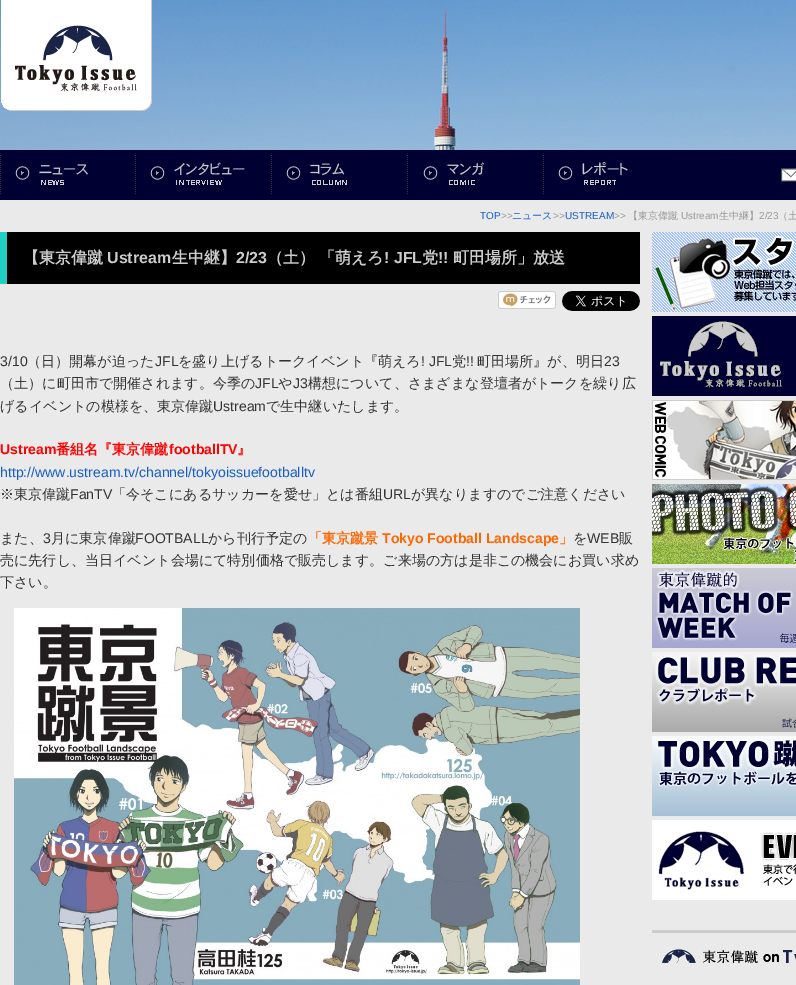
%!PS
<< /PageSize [796 985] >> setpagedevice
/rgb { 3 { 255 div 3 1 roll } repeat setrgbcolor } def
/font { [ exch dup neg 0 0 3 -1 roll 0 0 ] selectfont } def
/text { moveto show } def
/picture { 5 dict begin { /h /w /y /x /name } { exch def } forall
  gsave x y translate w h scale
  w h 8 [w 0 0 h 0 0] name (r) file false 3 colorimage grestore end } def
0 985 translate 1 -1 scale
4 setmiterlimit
234 234 234 rgb
0 0 796 985 rectfill
(img_01.rgb) 0 0 796 150 picture
(img_02.rgb) 1 0 151 111 picture
0 0 50 rgb
0 150 796 50 rectfill
(img_03.rgb) 0 155 136 39 picture
(img_04.rgb) 150 155 122 39 picture
(img_05.rgb) 286 155 122 39 picture
(img_06.rgb) 423 155 121 39 picture
(img_07.rgb) 558 161 70 24 picture
(img_08.rgb) 781 168 15 14 picture
0 0 0 rgb
7 232 633 52 rectfill
33 208 194 rgb
0 232 7 52 rectfill
(img_09.rgb) 498 291 58 18 picture
(img_10.rgb) 562 291 78 20 picture
(img_11.rgb) 14 608 566 377 picture
(img_12.rgb) 652 232 144 80 picture
(img_13.rgb) 652 316 144 80 picture
(img_14.rgb) 652 400 144 80 picture
(img_15.rgb) 652 484 144 80 picture
(img_16.rgb) 652 568 144 80 picture
(img_17.rgb) 652 652 144 80 picture
(img_18.rgb) 652 736 144 80 picture
(img_19.rgb) 652 820 144 80 picture
(img_20.rgb) 662 949 34 14 picture
204 204 204 rgb
652 930 144 3 rectfill
(img_21.rgb) 703 950 93 13 picture
/LiberationSans-Regular 10 font
21 94 202 rgb
(TOP) 480 219 text
153 153 153 rgb
(>>) 501 219 text
/WenQuanYiZenHei-Medium 10 font
21 94 202 rgb
(ニュース) 512 219 text
/LiberationSans-Regular 10 font
153 153 153 rgb
(>>) 553 219 text
21 94 202 rgb
(USTREAM) 565 219 text
153 153 153 rgb
(>>) 614 219 text
/WenQuanYiZenHei-Medium 10 font
(【東京偉蹴) 628 219 text
/LiberationSans-Regular 10 font
(Ustream) 681 219 text
/WenQuanYiZenHei-Medium 10 font
(生中継】) 719 219 text
/LiberationSans-Regular 10 font
(2/23) 759 219 text
/WenQuanYiZenHei-Medium 10 font
(（土) 778 219 text
/WenQuanYiZenHei-Bold 16 font
204 204 204 rgb
(【東京偉蹴) 23 263 text
/LiberationSans-Bold 16 font
(Ustream) 107 263 text
/WenQuanYiZenHei-Bold 16 font
(生中継】) 172 263 text
/LiberationSans-Bold 16 font
(2/23) 236 263 text
/WenQuanYiZenHei-Bold 16 font
(（土）) 267 263 text
(「萌えろ) 319 263 text
/LiberationSans-Bold 16 font
(! JFL) 384 263 text
/WenQuanYiZenHei-Bold 16 font
(党) 422 263 text
/LiberationSans-Bold 16 font
(!!) 438 263 text
/WenQuanYiZenHei-Bold 16 font
(町田場所」放送) 453 263 text
/LiberationSans-Regular 14.05 font
51 51 51 rgb
(3/10) 0 366 text
/WenQuanYiZenHei-Medium 14.05 font
(（日）開幕が迫った) 27 366 text
/LiberationSans-Regular 14.05 font
(JFL) 155 366 text
/WenQuanYiZenHei-Medium 14.05 font
(を盛り上げるトークイベント『萌えろ) 178 366 text
/LiberationSans-Regular 14.05 font
(! JFL) 421 366 text
/WenQuanYiZenHei-Medium 14.05 font
(党) 452 366 text
/LiberationSans-Regular 14.05 font
(!!) 466 366 text
/WenQuanYiZenHei-Medium 14.05 font
(町田場所』が、明日) 477 366 text
/LiberationSans-Regular 14.05 font
(23) 604 366 text
/WenQuanYiZenHei-Medium 14.05 font
(（土）に町田市で開催されます。今季の) 0 388 text
/LiberationSans-Regular 14.05 font
(JFL) 255 388 text
/WenQuanYiZenHei-Medium 14.05 font
(や) 278 388 text
/LiberationSans-Regular 14.05 font
(J3) 293 388 text
/WenQuanYiZenHei-Medium 14.05 font
(構想について、さまざまな登壇者がトークを繰り広) 308 388 text
(げるイベントの模様を、東京偉蹴) 0 411 text
/LiberationSans-Regular 14.05 font
(Ustream) 213 411 text
/WenQuanYiZenHei-Medium 14.05 font
(で生中継いたします。) 266 411 text
/LiberationSans-Bold 14.05 font
255 0 0 rgb
(Ustream) 0 454 text
/WenQuanYiZenHei-Bold 14.05 font
(番組名『東京偉蹴) 56 454 text
/LiberationSans-Bold 14.05 font
(footballTV) 169 454 text
/WenQuanYiZenHei-Bold 14.05 font
(』) 237 454 text
/LiberationSans-Regular 14.05 font
21 94 202 rgb
(http://www.ustream.tv/channel/tokyoissuefootballtv) 0 477 text
/WenQuanYiZenHei-Medium 14.05 font
51 51 51 rgb
(※東京偉蹴) 0 499 text
/LiberationSans-Regular 14.05 font
(FanTV) 70 499 text
/WenQuanYiZenHei-Medium 14.05 font
(「今そこにあるサッカーを愛せ」とは番組) 112 499 text
/LiberationSans-Regular 14.05 font
(URL) 383 499 text
/WenQuanYiZenHei-Medium 14.05 font
(が異なりますのでご注意ください) 411 499 text
(また、) 0 543 text
/LiberationSans-Regular 14.05 font
(3) 43 543 text
/WenQuanYiZenHei-Medium 14.05 font
(月に東京偉蹴) 51 543 text
/LiberationSans-Regular 14.05 font
(FOOTBALL) 135 543 text
/WenQuanYiZenHei-Medium 14.05 font
(から刊行予定の) 208 543 text
/WenQuanYiZenHei-Bold 14.05 font
255 102 0 rgb
(「東京蹴景) 308 543 text
/LiberationSans-Bold 14.05 font
(Tokyo Football Landscape) 382 543 text
/WenQuanYiZenHei-Bold 14.05 font
(」) 559 543 text
/WenQuanYiZenHei-Medium 14.05 font
51 51 51 rgb
(を) 573 543 text
/LiberationSans-Regular 14.05 font
(WEB) 587 543 text
/WenQuanYiZenHei-Medium 14.05 font
(販) 619 543 text
(売に先行し、当日イベント会場にて特別価格で販売します。ご来場の方は是非この機会にお買い求め) 0 565 text
(下さい。) 0 587 text
showpage
